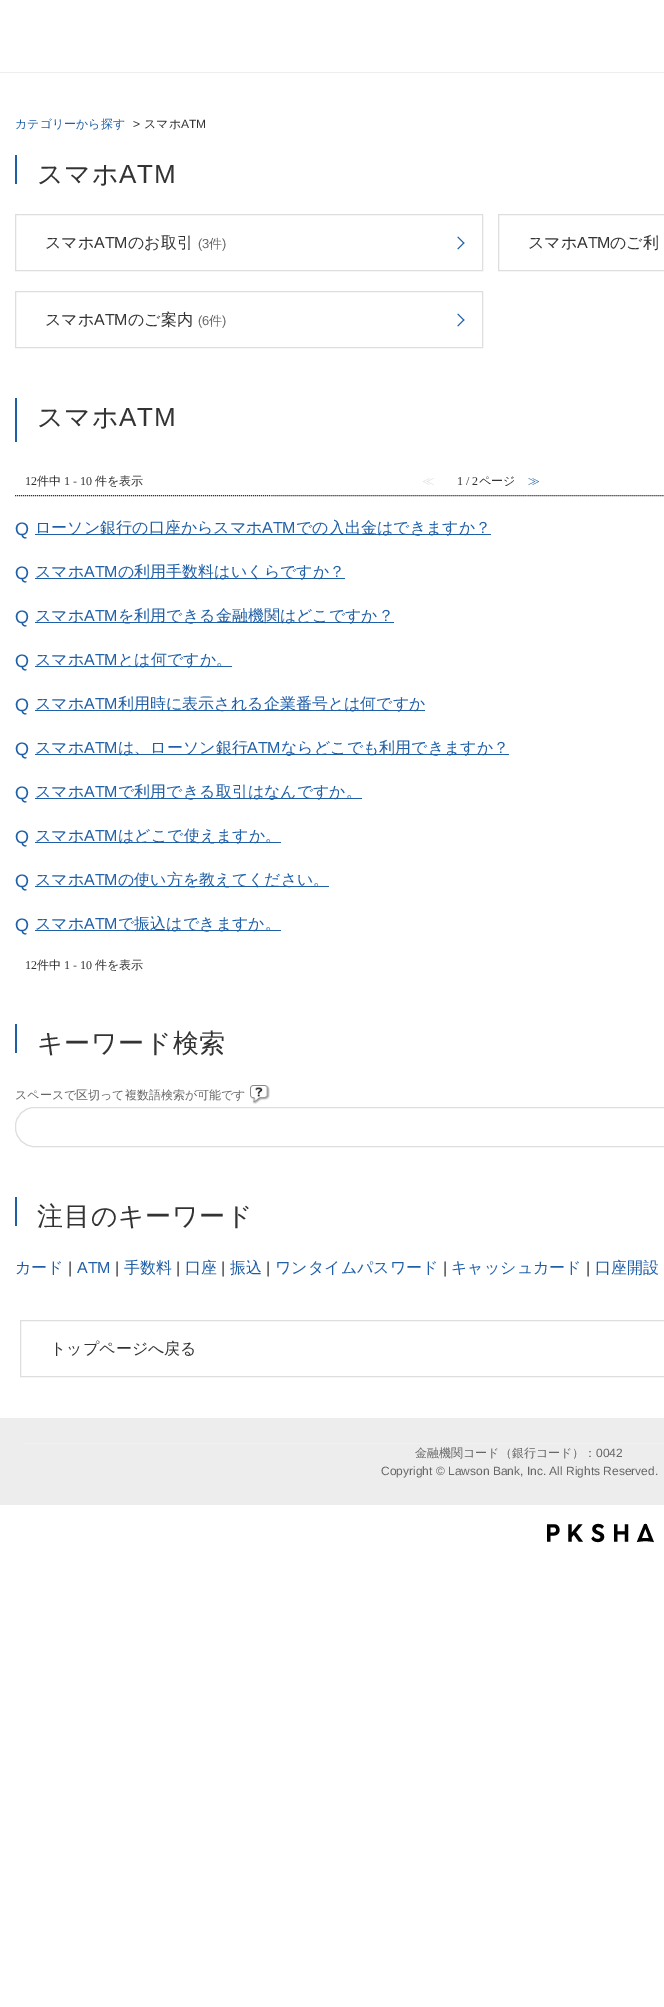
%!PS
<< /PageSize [664 2007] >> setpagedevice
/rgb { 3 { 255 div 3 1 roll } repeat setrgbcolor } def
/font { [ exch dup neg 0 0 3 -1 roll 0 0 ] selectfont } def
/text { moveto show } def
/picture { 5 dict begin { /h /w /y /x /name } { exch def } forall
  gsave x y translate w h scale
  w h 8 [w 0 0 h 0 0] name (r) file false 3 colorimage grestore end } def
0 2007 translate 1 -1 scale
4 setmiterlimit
255 255 255 rgb
0 0 664 2007 rectfill
238 238 238 rgb
0 72 664 1 rectfill
31 95 168 rgb
15 155 2 29 rectfill
222 222 222 rgb
15.5 214.5 467 56 rectstroke
31 95 168 rgb
458 236.5 moveto 6.5 6.5 rlineto -1 0.5 rlineto -6 -6 rlineto closepath fill
463.5 242.5 moveto 1 0.5 rlineto -6.5 6.5 rlineto -0.5 -1 rlineto closepath fill
222 222 222 rgb
498.5 214.5 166 56 rectstroke
15.5 291.5 467 56 rectstroke
31 95 168 rgb
458 313.5 moveto 6.5 6.5 rlineto -1 0.5 rlineto -6 -6 rlineto closepath fill
463.5 319.5 moveto 1 0.5 rlineto -6.5 6.5 rlineto -0.5 -1 rlineto closepath fill
15 398 2 44 rectfill
51 51 51 rgb
[1 1] 0 setdash
15 495.5 moveto 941 0 rlineto stroke
31 95 168 rgb
35 534 456 1 rectfill
35 578 310 1 rectfill
35 622 359 1 rectfill
35 666 197 1 rectfill
35 710 390 1 rectfill
35 754 474 1 rectfill
35 798 327 1 rectfill
35 842 246 1 rectfill
35 886 294 1 rectfill
35 930 246 1 rectfill
15 1024 2 29 rectfill
(img_01.rgb) 250 1085 20 19 picture
222 222 222 rgb
[] 0 setdash
34 1107.5 moveto 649.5 0 rlineto 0 39 rlineto -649.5 0 rlineto -10 0 -18.5 -8.5 -18.5 -18.5 rcurveto 0 -2 rlineto 0 -10 8.5 -18.5 18.5 -18.5 rcurveto closepath stroke
31 95 168 rgb
15 1197 2 29 rectfill
222 222 222 rgb
20.5 1320.5 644 56 rectstroke
237 237 237 rgb
0 1418 664 87 rectfill
241 241 241 rgb
25 1443 639 1 rectfill
(img_02.rgb) 547 1523 107 20 picture
/WenQuanYiZenHei-Medium 12 font
31 95 168 rgb
(カテゴリーから探す) 15 128 text
/LiberationSans-Regular 12 font
51 51 51 rgb
(>) 133 128 text
/WenQuanYiZenHei-Medium 12 font
(スマホ) 144 128 text
/LiberationSans-Regular 12 font
(ATM) 181 128 text
/WenQuanYiZenHei-Medium 26 font
37 183 moveto 0.75 0 (スマホ) ashow
/LiberationSans-Regular 26 font
119 183 moveto 0.75 0 (ATM) ashow
/WenQuanYiZenHei-Medium 16 font
(スマホ) 45 248 text
/LiberationSans-Regular 16 font
(ATM) 94 248 text
/WenQuanYiZenHei-Medium 16 font
(のお取引) 128 248 text
/LiberationSans-Regular 13 font
102 102 102 rgb
(\(3) 198 248 text
/WenQuanYiZenHei-Medium 13 font
(件) 209 248 text
/LiberationSans-Regular 13 font
(\)) 222 248 text
/WenQuanYiZenHei-Medium 16 font
51 51 51 rgb
(スマホ) 528 248 text
/LiberationSans-Regular 16 font
(ATM) 577 248 text
/WenQuanYiZenHei-Medium 16 font
(のご利) 610 248 text
(スマホ) 45 325 text
/LiberationSans-Regular 16 font
(ATM) 94 325 text
/WenQuanYiZenHei-Medium 16 font
(のご案内) 128 325 text
/LiberationSans-Regular 13 font
102 102 102 rgb
(\(6) 198 325 text
/WenQuanYiZenHei-Medium 13 font
(件) 209 325 text
/LiberationSans-Regular 13 font
(\)) 222 325 text
/WenQuanYiZenHei-Medium 26 font
51 51 51 rgb
37 426 moveto 0.75 0 (スマホ) ashow
/LiberationSans-Regular 26 font
119 426 moveto 0.75 0 (ATM) ashow
/LiberationSerif-Regular 12 font
(12) 25 485 text
/WenQuanYiZenHei-Medium 12 font
(件中) 37 485 text
/LiberationSerif-Regular 12 font
(1 - 10) 64 485 text
/WenQuanYiZenHei-Medium 12 font
(件を表示) 95 485 text
221 221 221 rgb
(≪) 422 485 text
/LiberationSerif-Regular 12 font
51 51 51 rgb
(1 / 2) 457 485 text
/WenQuanYiZenHei-Medium 12 font
(ページ) 479 485 text
31 95 168 rgb
(≫) 528 485 text
/LiberationSans-Regular 18 font
(Q) 15 535 text
/WenQuanYiZenHei-Medium 16 font
(ローソン銀行の口座からスマホ) 35 533 text
/LiberationSans-Regular 16 font
(ATM) 262 533 text
/WenQuanYiZenHei-Medium 16 font
(での入出金はできますか？) 296 533 text
/LiberationSans-Regular 18 font
(Q) 15 579 text
/WenQuanYiZenHei-Medium 16 font
(スマホ) 35 577 text
/LiberationSans-Regular 16 font
(ATM) 84 577 text
/WenQuanYiZenHei-Medium 16 font
(の利用手数料はいくらですか？) 118 577 text
/LiberationSans-Regular 18 font
(Q) 15 623 text
/WenQuanYiZenHei-Medium 16 font
(スマホ) 35 621 text
/LiberationSans-Regular 16 font
(ATM) 84 621 text
/WenQuanYiZenHei-Medium 16 font
(を利用できる金融機関はどこですか？) 118 621 text
/LiberationSans-Regular 18 font
(Q) 15 667 text
/WenQuanYiZenHei-Medium 16 font
(スマホ) 35 665 text
/LiberationSans-Regular 16 font
(ATM) 84 665 text
/WenQuanYiZenHei-Medium 16 font
(とは何ですか。) 118 665 text
/LiberationSans-Regular 18 font
(Q) 15 711 text
/WenQuanYiZenHei-Medium 16 font
(スマホ) 35 709 text
/LiberationSans-Regular 16 font
(ATM) 84 709 text
/WenQuanYiZenHei-Medium 16 font
(利用時に表示される企業番号とは何ですか) 118 709 text
/LiberationSans-Regular 18 font
(Q) 15 755 text
/WenQuanYiZenHei-Medium 16 font
(スマホ) 35 753 text
/LiberationSans-Regular 16 font
(ATM) 84 753 text
/WenQuanYiZenHei-Medium 16 font
(は、ローソン銀行) 118 753 text
/LiberationSans-Regular 16 font
(ATM) 247 753 text
/WenQuanYiZenHei-Medium 16 font
(ならどこでも利用できますか？) 281 753 text
/LiberationSans-Regular 18 font
(Q) 15 799 text
/WenQuanYiZenHei-Medium 16 font
(スマホ) 35 797 text
/LiberationSans-Regular 16 font
(ATM) 84 797 text
/WenQuanYiZenHei-Medium 16 font
(で利用できる取引はなんですか。) 118 797 text
/LiberationSans-Regular 18 font
(Q) 15 843 text
/WenQuanYiZenHei-Medium 16 font
(スマホ) 35 841 text
/LiberationSans-Regular 16 font
(ATM) 84 841 text
/WenQuanYiZenHei-Medium 16 font
(はどこで使えますか。) 118 841 text
/LiberationSans-Regular 18 font
(Q) 15 887 text
/WenQuanYiZenHei-Medium 16 font
(スマホ) 35 885 text
/LiberationSans-Regular 16 font
(ATM) 84 885 text
/WenQuanYiZenHei-Medium 16 font
(の使い方を教えてください。) 118 885 text
/LiberationSans-Regular 18 font
(Q) 15 931 text
/WenQuanYiZenHei-Medium 16 font
(スマホ) 35 929 text
/LiberationSans-Regular 16 font
(ATM) 84 929 text
/WenQuanYiZenHei-Medium 16 font
(で振込はできますか。) 118 929 text
/LiberationSerif-Regular 12 font
51 51 51 rgb
(12) 25 969 text
/WenQuanYiZenHei-Medium 12 font
(件中) 37 969 text
/LiberationSerif-Regular 12 font
(1 - 10) 64 969 text
/WenQuanYiZenHei-Medium 12 font
(件を表示) 95 969 text
/WenQuanYiZenHei-Medium 26 font
37 1052 moveto 0.75 0 (キーワード検索) ashow
/WenQuanYiZenHei-Medium 12 font
102 102 102 rgb
(スペースで区切って複数語検索が可能です) 15 1099 text
/WenQuanYiZenHei-Medium 26 font
51 51 51 rgb
37 1225 moveto 0.75 0 (注目のキーワード) ashow
/WenQuanYiZenHei-Medium 16 font
31 95 168 rgb
(カード) 15 1273 text
/LiberationSans-Regular 16 font
51 51 51 rgb
(|) 68 1273 text
31 95 168 rgb
(ATM) 77 1273 text
51 51 51 rgb
(|) 115 1273 text
/WenQuanYiZenHei-Medium 16 font
31 95 168 rgb
(手数料) 124 1273 text
/LiberationSans-Regular 16 font
51 51 51 rgb
(|) 176 1273 text
/WenQuanYiZenHei-Medium 16 font
31 95 168 rgb
(口座) 185 1273 text
/LiberationSans-Regular 16 font
51 51 51 rgb
(|) 221 1273 text
/WenQuanYiZenHei-Medium 16 font
31 95 168 rgb
(振込) 230 1273 text
/LiberationSans-Regular 16 font
51 51 51 rgb
(|) 266 1273 text
/WenQuanYiZenHei-Medium 16 font
31 95 168 rgb
(ワンタイムパスワード) 275 1273 text
/LiberationSans-Regular 16 font
51 51 51 rgb
(|) 443 1273 text
/WenQuanYiZenHei-Medium 16 font
31 95 168 rgb
(キャッシュカード) 451 1273 text
/LiberationSans-Regular 16 font
51 51 51 rgb
(|) 586 1273 text
/WenQuanYiZenHei-Medium 16 font
31 95 168 rgb
(口座開設) 595 1273 text
51 51 51 rgb
(トップページへ戻る) 50 1354 text
/WenQuanYiZenHei-Medium 12 font
102 102 102 rgb
(金融機関コード（銀行コード）：) 415 1457 text
/LiberationSans-Regular 12 font
(0042) 596 1457 text
(Copyright © Lawson Bank, Inc. All Rights Reserved.) 381 1475 text
showpage
